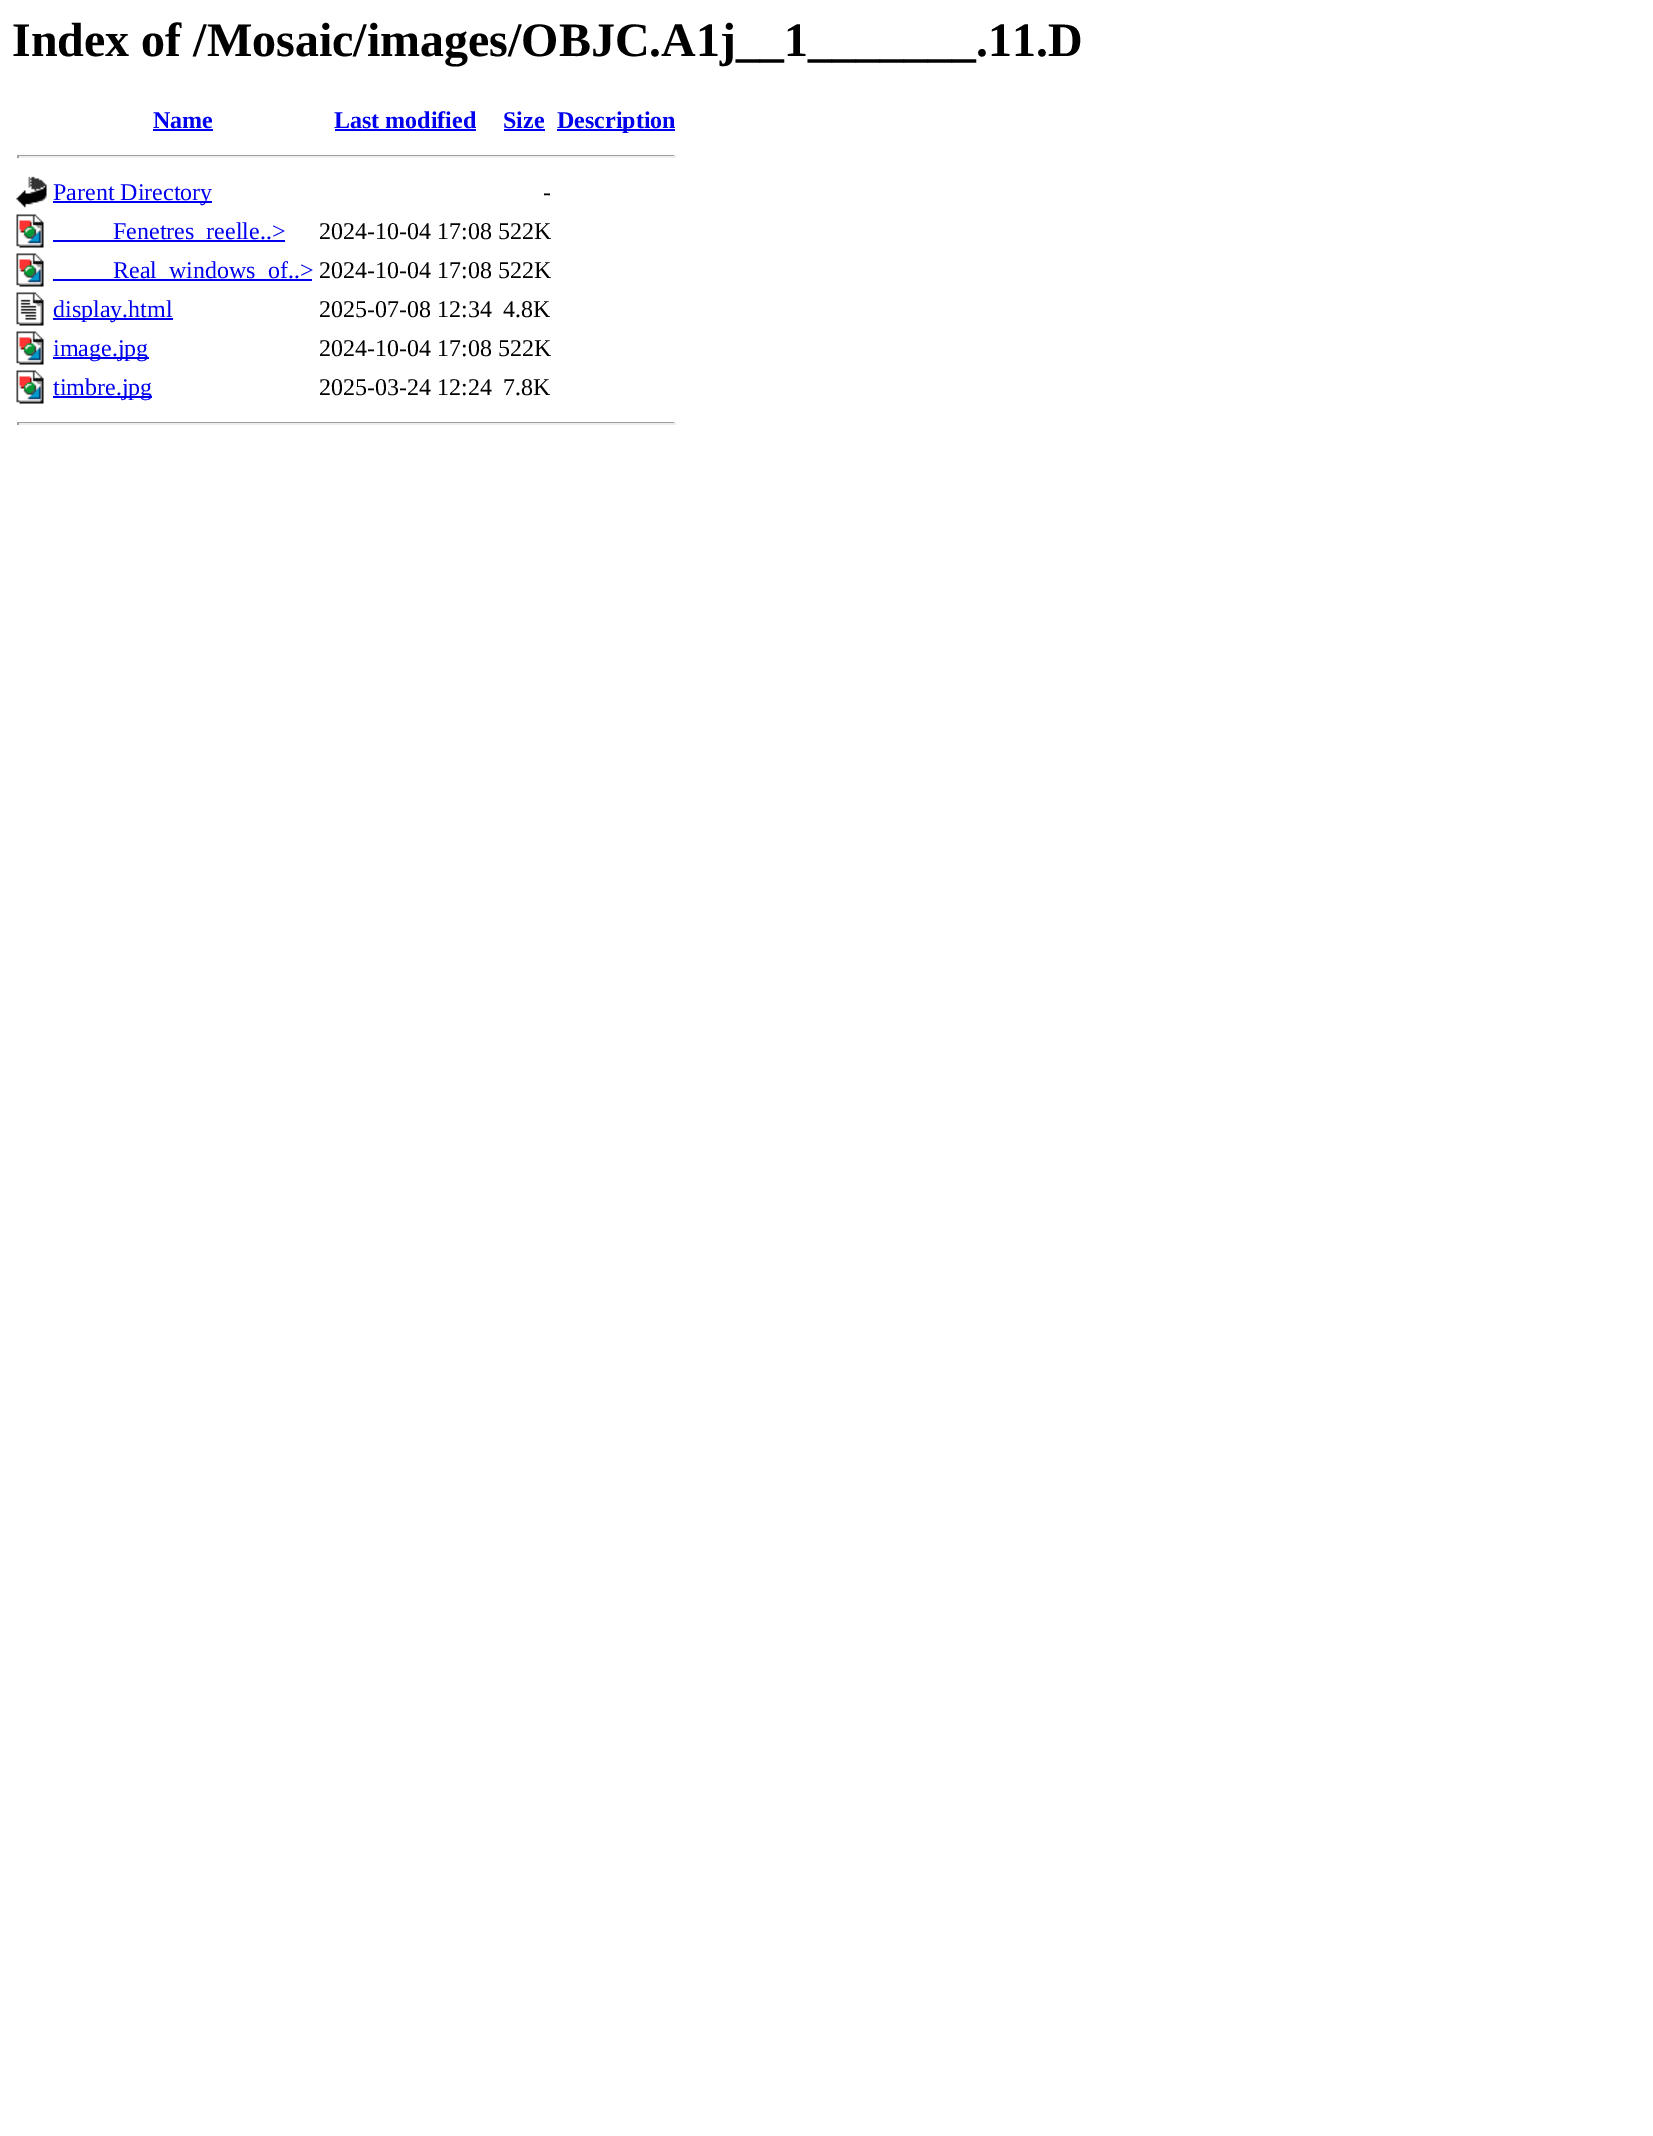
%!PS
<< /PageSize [1653 2136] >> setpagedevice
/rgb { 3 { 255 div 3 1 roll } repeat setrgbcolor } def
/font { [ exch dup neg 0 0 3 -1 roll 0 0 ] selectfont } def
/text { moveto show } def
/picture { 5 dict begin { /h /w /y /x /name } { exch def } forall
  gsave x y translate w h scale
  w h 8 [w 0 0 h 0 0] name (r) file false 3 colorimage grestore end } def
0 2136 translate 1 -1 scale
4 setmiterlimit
255 255 255 rgb
0 0 1653 2136 rectfill
0 0 238 rgb
153 129 60 2 rectfill
335 129 141 2 rectfill
504 129 41 2 rectfill
557 129 118 2 rectfill
159 159 159 rgb
17 155 658 1 rectfill
238 238 238 rgb
674 155 2 3 rectfill
17 156 658 2 rectfill
159 159 159 rgb
17 155 2 3 rectfill
(img_01.rgb) 16 176 31 32 picture
0 0 238 rgb
53 201 159 2 rectfill
(img_02.rgb) 16 214 28 34 picture
53 240 232 2 rectfill
(img_02.rgb) 16 253 28 34 picture
53 279 259 2 rectfill
(img_03.rgb) 16 292 28 34 picture
53 318 120 2 rectfill
(img_02.rgb) 16 331 28 34 picture
53 357 96 2 rectfill
(img_02.rgb) 16 370 28 34 picture
53 396 99 2 rectfill
159 159 159 rgb
17 422 658 1 rectfill
238 238 238 rgb
674 422 2 3 rectfill
17 423 658 2 rectfill
159 159 159 rgb
17 422 2 3 rectfill
/LiberationSerif-Bold 48 font
0 0 0 rgb
(Index of /Mosaic/images/OBJC.A1j__1_______.11.D) 12 56 text
/LiberationSerif-Bold 24 font
0 0 238 rgb
(Name) 153 128 text
(Last modified) 334 128 text
(Size) 503 128 text
(Description) 557 128 text
/LiberationSerif-Regular 24 font
(Parent Directory) 53 200 text
0 0 0 rgb
(-) 543 200 text
0 0 238 rgb
(Fenetres_reelle..>) 113 239 text
0 0 0 rgb
(2024-10-04 17:08 522K) 319 239 text
0 0 238 rgb
(Real_windows_of..>) 113 278 text
0 0 0 rgb
(2024-10-04 17:08 522K) 319 278 text
0 0 238 rgb
(display.html) 53 317 text
0 0 0 rgb
(2025-07-08 12:34) 319 317 text
(4.8K) 503 317 text
0 0 238 rgb
(image.jpg) 53 356 text
0 0 0 rgb
(2024-10-04 17:08 522K) 319 356 text
0 0 238 rgb
(timbre.jpg) 53 395 text
0 0 0 rgb
(2025-03-24 12:24) 319 395 text
(7.8K) 503 395 text
showpage
